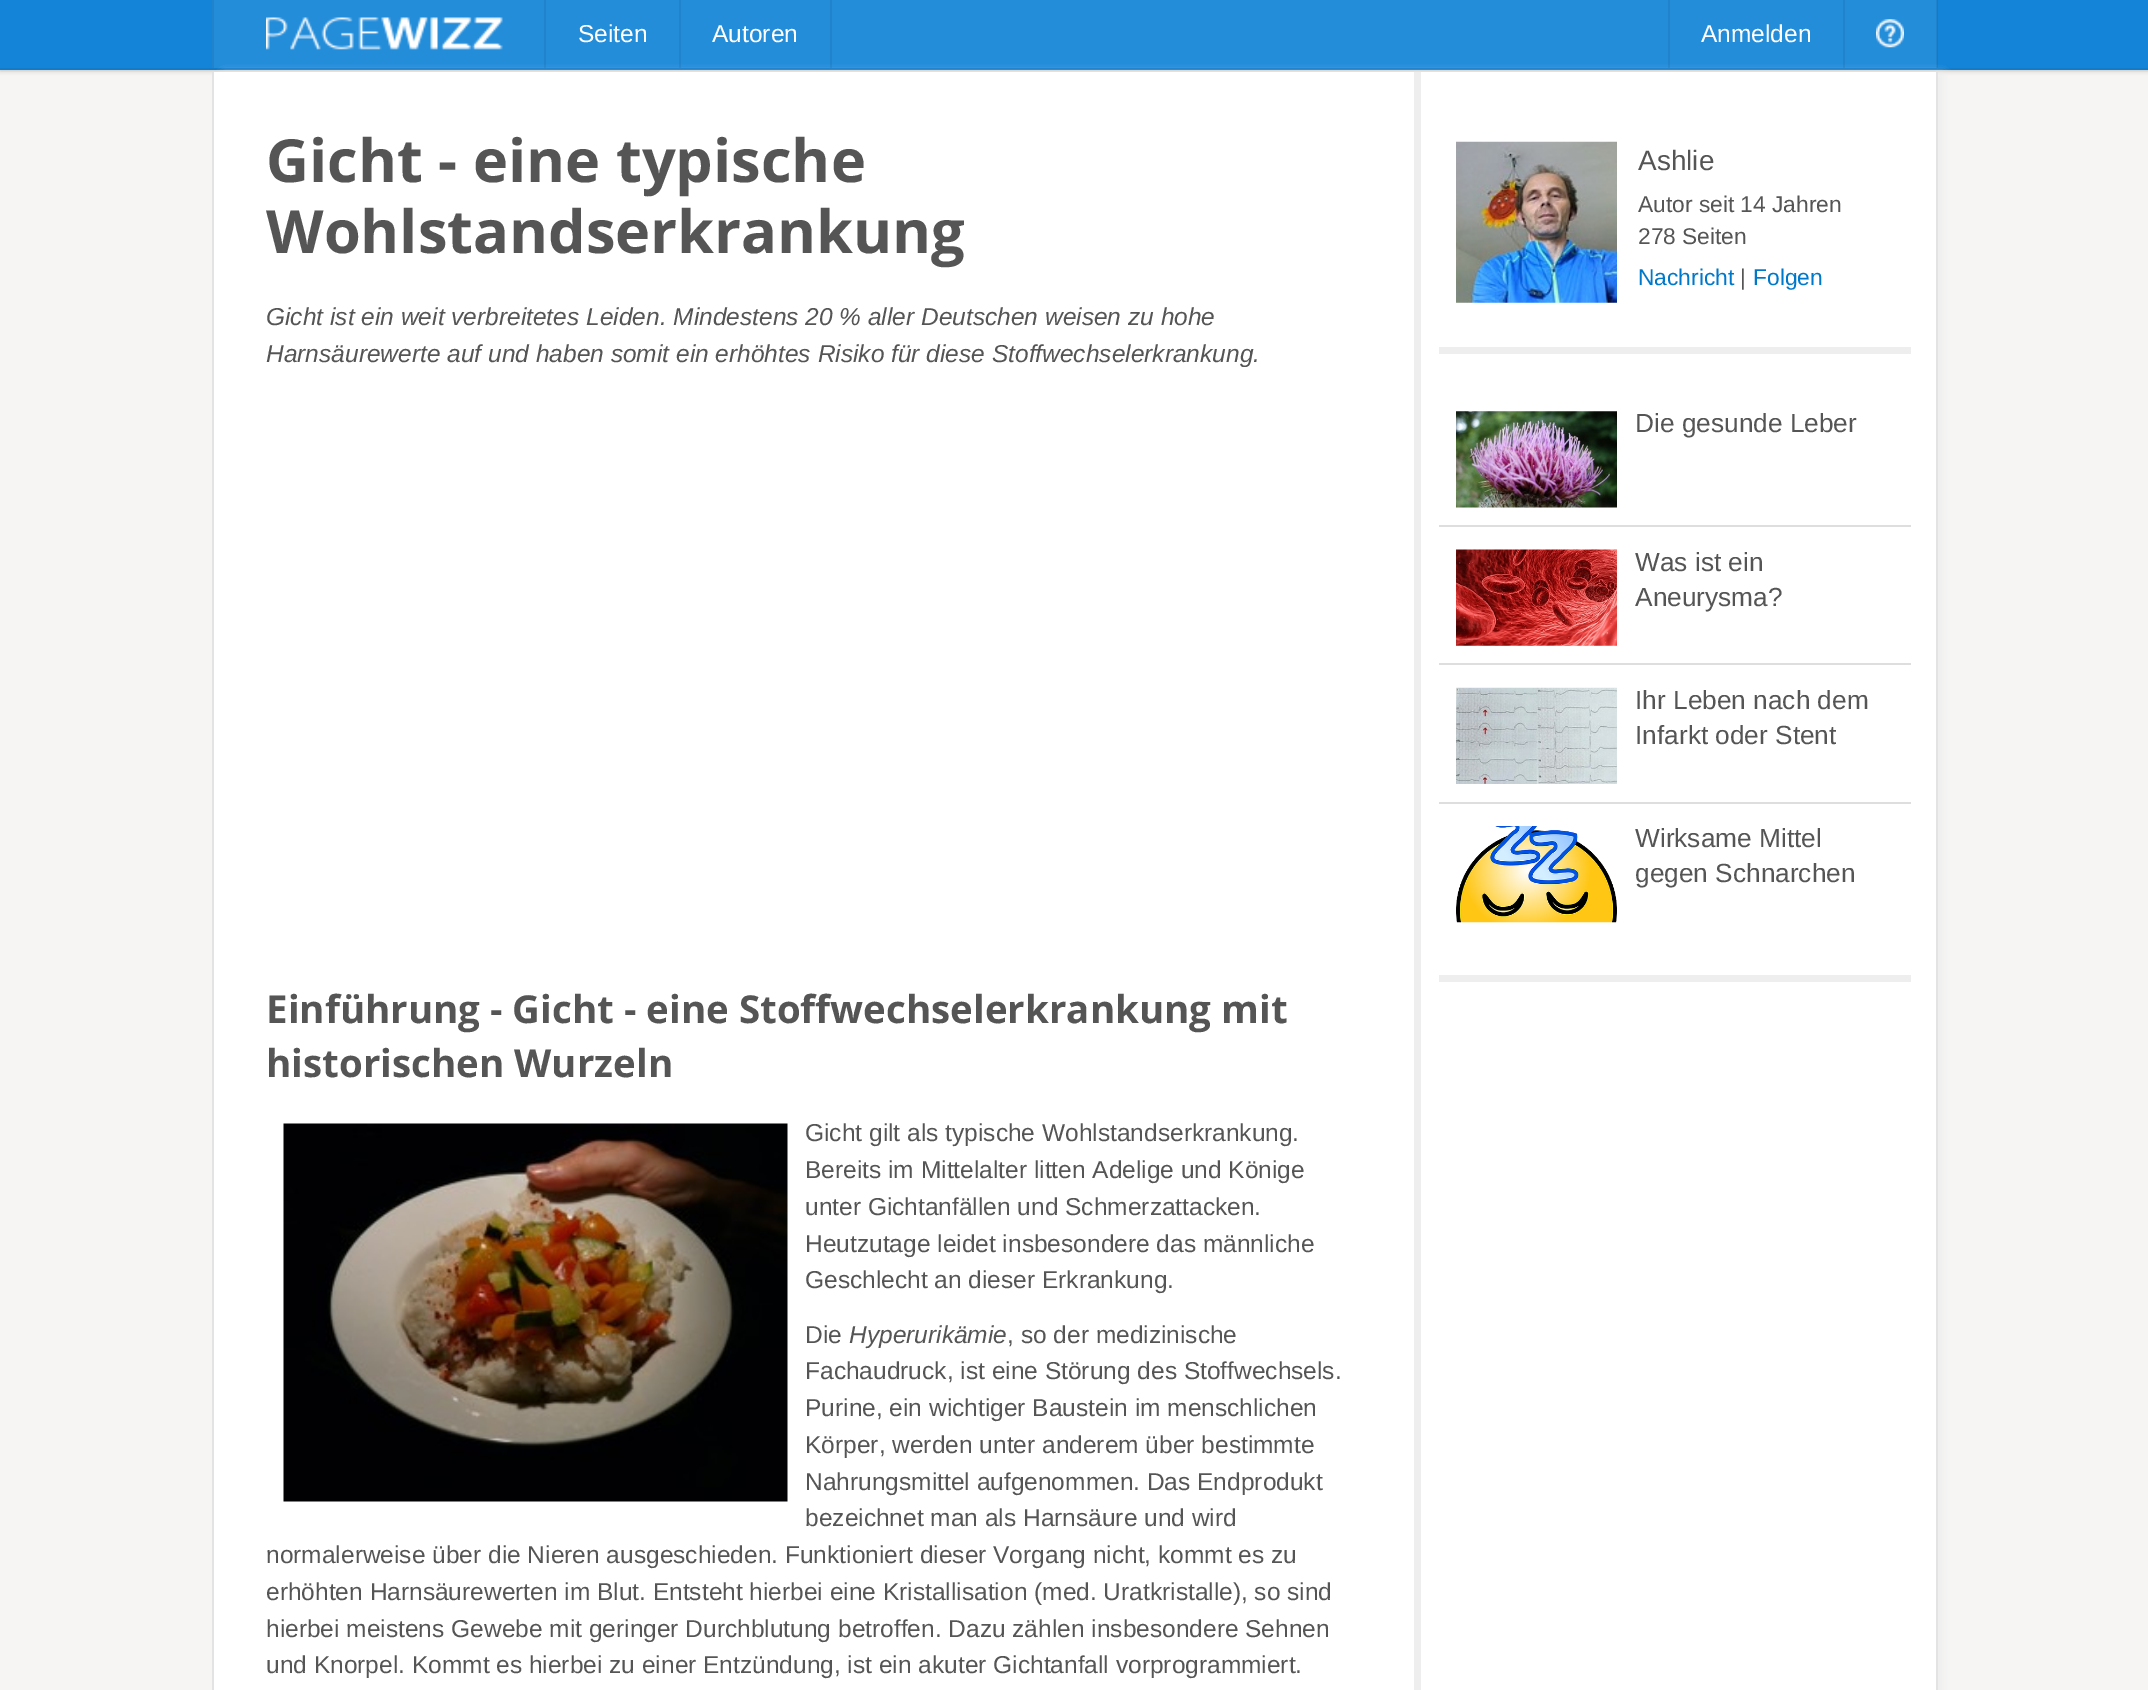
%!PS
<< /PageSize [2148 1690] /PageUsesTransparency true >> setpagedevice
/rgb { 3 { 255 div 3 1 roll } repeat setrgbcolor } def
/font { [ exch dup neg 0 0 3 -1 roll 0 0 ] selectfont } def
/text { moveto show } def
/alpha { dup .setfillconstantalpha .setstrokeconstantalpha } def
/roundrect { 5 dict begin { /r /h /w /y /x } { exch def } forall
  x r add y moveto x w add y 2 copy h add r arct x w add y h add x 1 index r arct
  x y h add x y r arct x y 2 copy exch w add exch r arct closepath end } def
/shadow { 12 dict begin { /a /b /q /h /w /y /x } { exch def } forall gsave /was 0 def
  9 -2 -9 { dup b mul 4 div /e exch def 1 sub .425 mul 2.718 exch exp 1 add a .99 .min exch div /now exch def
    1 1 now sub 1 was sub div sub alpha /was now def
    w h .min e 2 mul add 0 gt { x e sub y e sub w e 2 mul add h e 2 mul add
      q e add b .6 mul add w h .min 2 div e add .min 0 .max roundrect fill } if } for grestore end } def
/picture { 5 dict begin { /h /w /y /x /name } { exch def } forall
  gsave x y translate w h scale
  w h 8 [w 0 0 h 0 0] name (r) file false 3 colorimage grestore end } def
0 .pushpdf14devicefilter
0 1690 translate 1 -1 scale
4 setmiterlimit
246 245 244 rgb
0 0 2148 1690 rectfill
0 0 0 rgb
0 0 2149 70 0 2.5 0.3 shadow
19 132 215 rgb
0 0 2148 68 rectfill
18 123 200 rgb
1937 0 1 68 rectfill
18 124 203 rgb
0 68 2148 2 rectfill
36 141 218 rgb
214 0 1722 68 rectfill
33 131 203 rgb
1936 0 1 68 rectfill
(img_01.rgb) 266 17 237 33 picture
212 0 2 68 rectfill
544 0 2 68 rectfill
679 0 2 68 rectfill
830 0 2 68 rectfill
1668 0 2 68 rectfill
1843 0 2 68 rectfill
(img_02.rgb) 1876 19 28 29 picture
238 238 238 rgb
224 75 1719 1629 0 4.5 1 shadow
255 255 255 rgb
214 72 1722 1618 rectfill
227 227 227 rgb
1936 72 2 1618 rectfill
212 72 2 1618 rectfill
238 238 238 rgb
1414 72 7 1618 rectfill
(img_03.rgb) 283 1123 505 379 picture
1439 347 472 7 rectfill
(img_04.rgb) 1456 141 161 162 picture
1439 975 472 7 rectfill
222 222 222 rgb
1439 525 472 2 rectfill
(img_05.rgb) 1456 411 161 97 picture
1439 663 472 2 rectfill
(img_06.rgb) 1456 549 161 97 picture
1439 802 472 2 rectfill
(img_07.rgb) 1456 687 161 97 picture
(img_08.rgb) 1456 826 161 97 picture
/LiberationSans-Regular 24.5 font
255 255 255 rgb
(Seiten) 578 42 text
(Autoren) 712 42 text
(Anmelden) 1701 42 text
/OpenSans-Bold 59.5 font
85 85 85 rgb
(Gicht - eine typische) 266 182 text
(Wohlstandserkrankung) 266 253 text
/LiberationSans-Italic 24.5 font
(Gicht ist ein weit verbreitetes Leiden. Mindestens 20 % aller Deutschen weisen zu hohe) 266 325 text
(Harnsäurewerte auf und haben somit ein erhöhtes Risiko für diese Stoffwechselerkrankung.) 266 362 text
/OpenSans-Bold 38.5 font
(Einführung - Gicht - eine Stoffwechselerkrankung mit) 266 1023 text
(historischen Wurzeln) 266 1077 text
/LiberationSans-Regular 24.5 font
(Gicht gilt als typische Wohlstandserkrankung.) 805 1141 text
(Bereits im Mittelalter litten Adelige und Könige) 805 1178 text
(unter Gichtanfällen und Schmerzattacken.) 805 1215 text
(Heutzutage leidet insbesondere das männliche) 805 1252 text
(Geschlecht an dieser Erkrankung.) 805 1288 text
(Die) 805 1343 text
/LiberationSans-Italic 24.5 font
(Hyperurikämie) 849 1343 text
/LiberationSans-Regular 24.5 font
(, so der medizinische) 1007 1343 text
(Fachaudruck, ist eine Störung des Stoffwechsels.) 805 1379 text
(Purine, ein wichtiger Baustein im menschlichen) 805 1416 text
(Körper, werden unter anderem über bestimmte) 805 1453 text
(Nahrungsmittel aufgenommen. Das Endprodukt) 805 1490 text
(bezeichnet man als Harnsäure und wird) 805 1526 text
(normalerweise über die Nieren ausgeschieden. Funktioniert dieser Vorgang nicht, kommt es zu) 266 1563 text
(erhöhten Harnsäurewerten im Blut. Entsteht hierbei eine Kristallisation \(med. Uratkristalle\), so sind) 266 1600 text
(hierbei meistens Gewebe mit geringer Durchblutung betroffen. Dazu zählen insbesondere Sehnen) 266 1637 text
(und Knorpel. Kommt es hierbei zu einer Entzündung, ist ein akuter Gichtanfall vorprogrammiert.) 266 1673 text
/LiberationSans-Regular 28 font
(Ashlie) 1638 170 text
/LiberationSans-Regular 22.75 font
(Autor seit 14 Jahren) 1638 212 text
(278 Seiten) 1638 244 text
0 120 202 rgb
(Nachricht) 1638 285 text
85 85 85 rgb
(|) 1740 285 text
0 120 202 rgb
(Folgen) 1753 285 text
/LiberationSans-Regular 26.25 font
85 85 85 rgb
(Die gesunde Leber) 1635 432 text
(Was ist ein) 1635 571 text
(Aneurysma?) 1635 606 text
(Ihr Leben nach dem) 1635 709 text
(Infarkt oder Stent) 1635 744 text
(Wirksame Mittel) 1635 847 text
(gegen Schnarchen) 1635 882 text
.poppdf14devicefilter showpage
